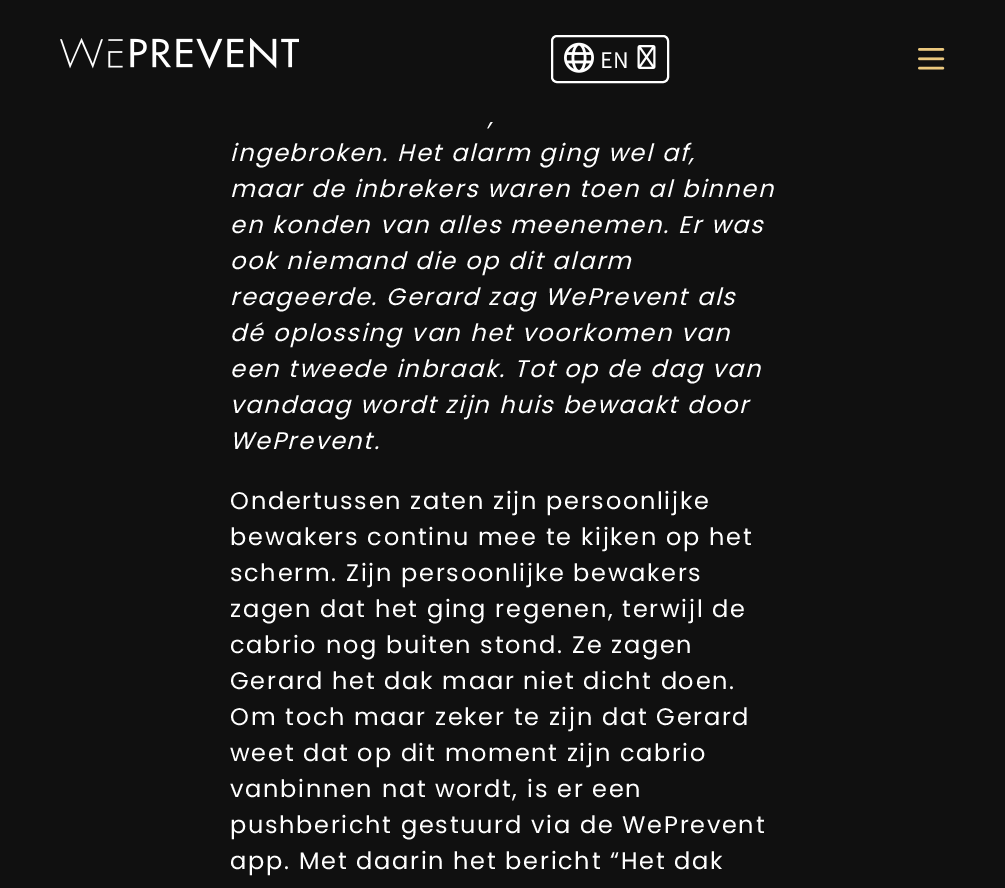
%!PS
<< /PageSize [1005 888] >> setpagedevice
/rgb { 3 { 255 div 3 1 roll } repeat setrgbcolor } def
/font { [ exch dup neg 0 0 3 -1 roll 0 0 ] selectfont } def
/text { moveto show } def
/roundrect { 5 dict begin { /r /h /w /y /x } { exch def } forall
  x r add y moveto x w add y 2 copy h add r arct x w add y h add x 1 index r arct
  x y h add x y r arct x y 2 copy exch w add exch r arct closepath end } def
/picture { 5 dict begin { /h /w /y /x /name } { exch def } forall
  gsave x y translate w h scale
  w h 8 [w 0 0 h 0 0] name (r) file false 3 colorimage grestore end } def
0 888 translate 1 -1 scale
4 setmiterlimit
16 16 16 rgb
0 0 1005 888 rectfill
(img_01.rgb) 60 38 239 31 picture
255 255 255 rgb
2 setlinewidth
552 36 116 46 5 roundrect stroke
(img_02.rgb) 564 42 30 31 picture
(img_03.rgb) 637 45 19 24 picture
(img_04.rgb) 918 48 27 22 picture
/SourceSansPro-Regular 24 font
(EN) 600 68 text
/Poppins-Italic 24 font
488 125 moveto 1.7 0 (,) ashow
230 161 moveto 1.7 0 (ingebroken. Het alarm ging wel af,) ashow
230 197 moveto 1.7 0 (maar de inbrekers waren toen al binnen) ashow
230 233 moveto 1.7 0 (en konden van alles meenemen. Er was) ashow
230 269 moveto 1.7 0 (ook niemand die op dit alarm) ashow
230 305 moveto 1.7 0 (reageerde. Gerard zag WePrevent als) ashow
230 341 moveto 1.7 0 (dé oplossing van het voorkomen van) ashow
230 377 moveto 1.7 0 (een tweede inbraak. Tot op de dag van) ashow
230 413 moveto 1.7 0 (vandaag wordt zijn huis bewaakt door) ashow
230 449 moveto 1.7 0 (WePrevent.) ashow
/Poppins-Regular 24 font
230 509 moveto 1.7 0 (Ondertussen zaten zijn persoonlijke) ashow
230 545 moveto 1.7 0 (bewakers continu mee te kijken op het) ashow
230 581 moveto 1.7 0 (scherm. Zijn persoonlijke bewakers) ashow
230 617 moveto 1.7 0 (zagen dat het ging regenen, terwijl de) ashow
230 653 moveto 1.7 0 (cabrio nog buiten stond. Ze zagen) ashow
230 689 moveto 1.7 0 (Gerard het dak maar niet dicht doen.) ashow
230 725 moveto 1.7 0 (Om toch maar zeker te zijn dat Gerard) ashow
230 761 moveto 1.7 0 (weet dat op dit moment zijn cabrio) ashow
230 797 moveto 1.7 0 (vanbinnen nat wordt, is er een) ashow
230 833 moveto 1.7 0 (pushbericht gestuurd via de WePrevent) ashow
230 869 moveto 1.7 0 (app. Met daarin het bericht “Het dak) ashow
showpage
